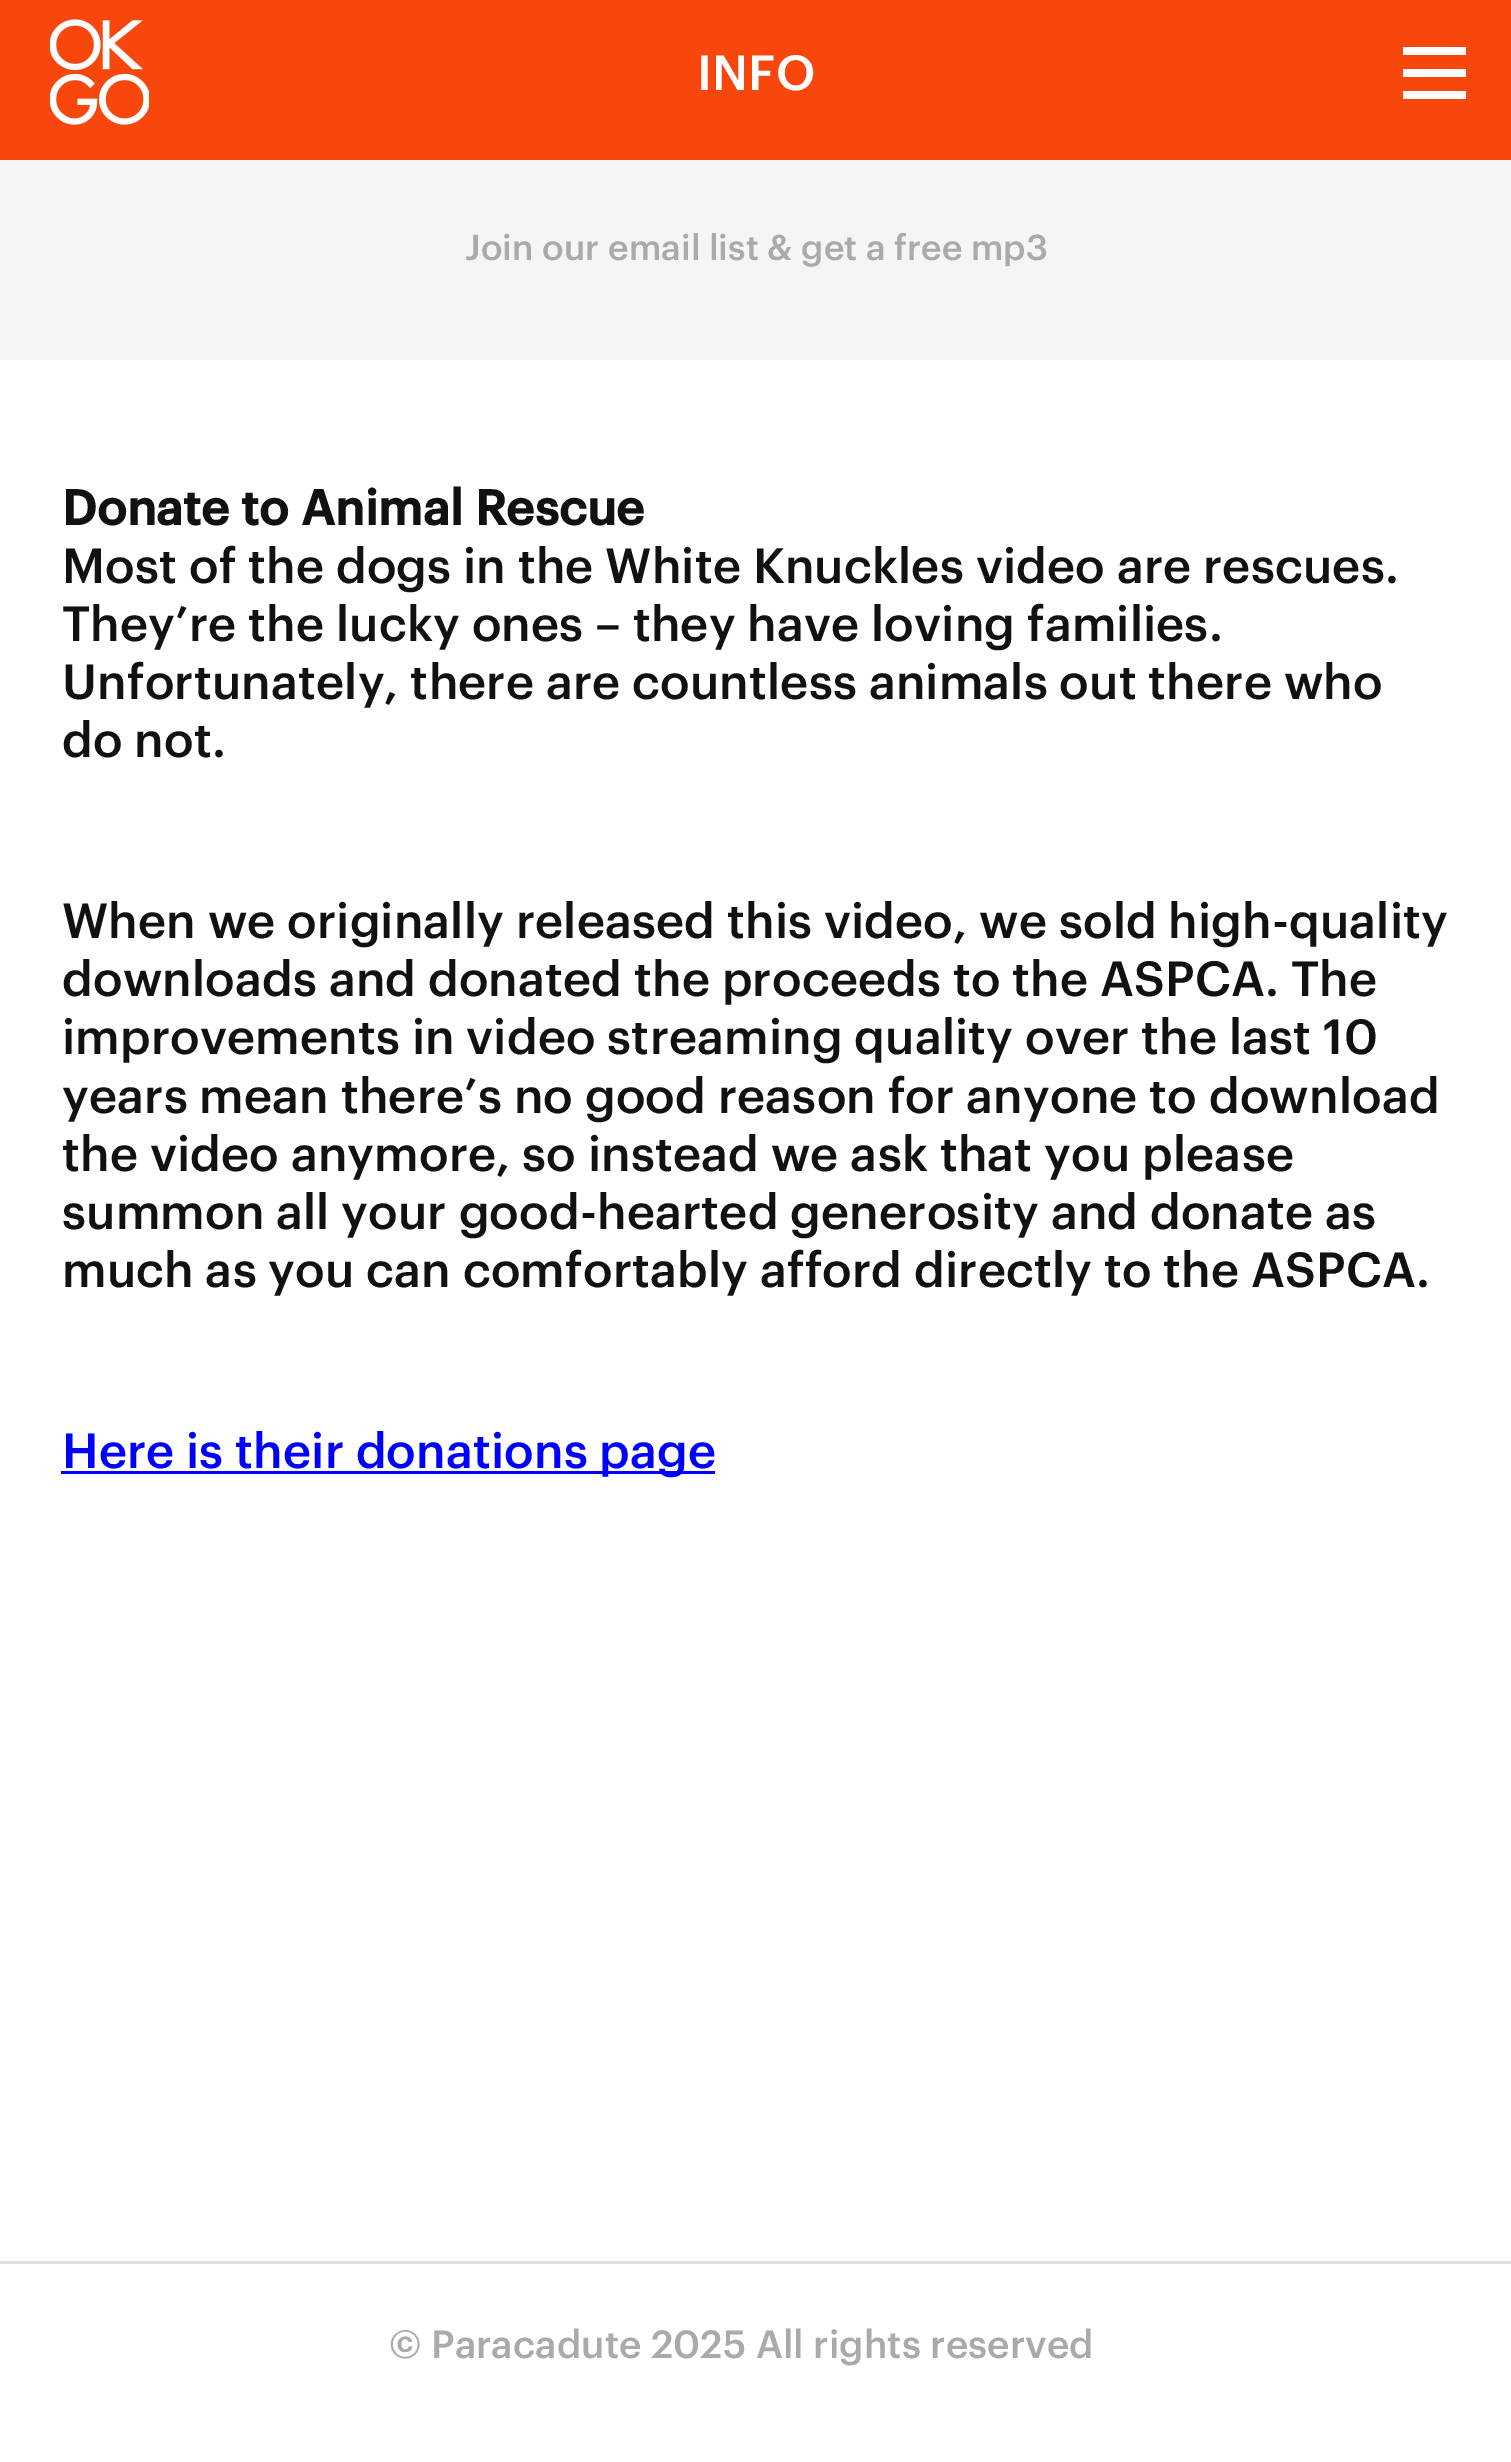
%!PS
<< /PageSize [1511 2462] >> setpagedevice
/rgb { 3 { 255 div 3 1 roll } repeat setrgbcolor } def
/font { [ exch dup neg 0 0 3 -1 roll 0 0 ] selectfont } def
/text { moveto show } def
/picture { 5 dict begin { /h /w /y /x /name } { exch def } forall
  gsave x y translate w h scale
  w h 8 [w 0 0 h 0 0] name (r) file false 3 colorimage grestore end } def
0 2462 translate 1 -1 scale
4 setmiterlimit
255 255 255 rgb
0 0 1511 2462 rectfill
247 71 13 rgb
0 0 1511 160 rectfill
(img_01.rgb) 50 19 99 106 picture
255 255 255 rgb
1403 47 63 8 rectfill
1403 69 63 8 rectfill
1403 91 63 8 rectfill
245 245 245 rgb
0 160 1511 200 rectfill
0 0 255 rgb
61 1471 654 3 rectfill
223 223 223 rgb
0 2261 1511 3 rectfill
/Graphik-Medium 48.4 font
255 255 255 rgb
(INFO) 697 90 text
/Graphik-Medium 35.25 font
170 170 170 rgb
(Join our email list & get a free mp3) 465 260 text
/Graphik-Bold 48.4 font
17 17 17 rgb
(Donate to Animal Rescue) 62 525 text
/Graphik-Medium 48.4 font
(Most of the dogs in the White Knuckles video are rescues.) 62 583 text
(They’re the lucky ones – they have loving families.) 62 641 text
(Unfortunately, there are countless animals out there who) 62 699 text
(do not.) 62 757 text
(When we originally released this video, we sold high-quality) 62 938 text
(downloads and donated the proceeds to the ASPCA. The) 62 996 text
(improvements in video streaming quality over the last 10) 62 1054 text
(years mean there’s no good reason for anyone to download) 62 1113 text
(the video anymore, so instead we ask that you please) 62 1171 text
(summon all your good-hearted generosity and donate as) 62 1229 text
(much as you can comfortably afford directly to the ASPCA.) 62 1287 text
0 0 255 rgb
(Here is their donations page) 62 1468 text
/Graphik-Medium 38.5 font
170 170 170 rgb
(© Paracadute 2025 All rights reserved) 389 2358 text
showpage
